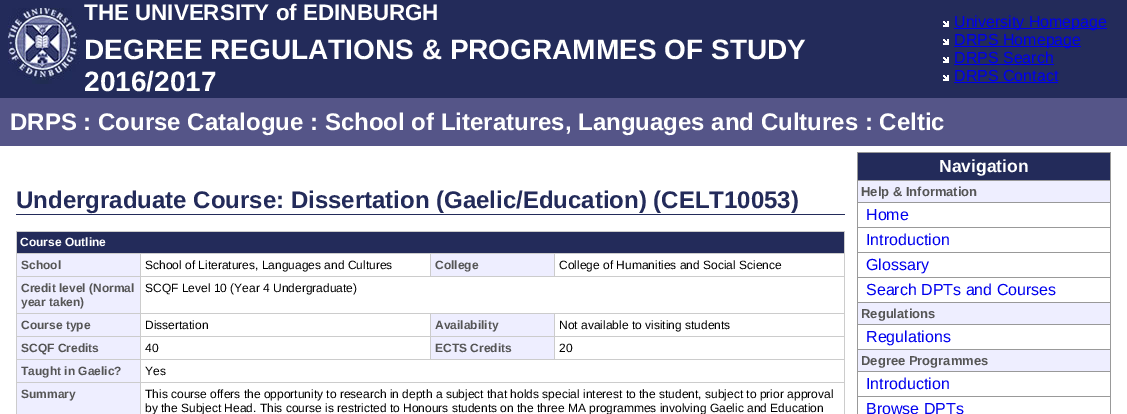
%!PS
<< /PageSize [1127 414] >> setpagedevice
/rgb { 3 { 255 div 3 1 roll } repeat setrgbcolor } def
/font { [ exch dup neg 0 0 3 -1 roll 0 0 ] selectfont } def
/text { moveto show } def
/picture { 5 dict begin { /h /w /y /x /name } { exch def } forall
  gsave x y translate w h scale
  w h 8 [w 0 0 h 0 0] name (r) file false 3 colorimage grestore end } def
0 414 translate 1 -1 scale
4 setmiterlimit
255 255 255 rgb
0 0 1127 414 rectfill
35 43 90 rgb
0 0 1127 98 rectfill
(img_01.rgb) 8 8 72 76 picture
(img_02.rgb) 943 21 6 6 picture
0 0 238 rgb
954 28 153 1 rectfill
(img_02.rgb) 943 39 6 6 picture
954 46 127 1 rectfill
(img_02.rgb) 943 57 6 6 picture
954 64 100 1 rectfill
(img_02.rgb) 943 75 6 6 picture
954 82 104 1 rectfill
85 85 136 rgb
0 98 1127 48 rectfill
35 43 90 rgb
16 214 829 1 rectfill
204 204 204 rgb
16 231 829 1 rectfill
844 231 1 183 rectfill
16 231 1 183 rectfill
35 43 90 rgb
17 232 827 21 rectfill
238 238 255 rgb
17 254 123 22 rectfill
204 204 204 rgb
554 253 291 1 rectfill
140 276 705 1 rectfill
554 253 1 24 rectfill
430 253 125 1 rectfill
430 253 1 24 rectfill
140 253 291 1 rectfill
554 313 291 1 rectfill
554 336 291 1 rectfill
140 359 705 1 rectfill
554 336 1 24 rectfill
430 336 125 1 rectfill
554 313 1 24 rectfill
430 313 125 1 rectfill
430 336 1 24 rectfill
140 336 291 1 rectfill
430 313 1 24 rectfill
140 313 291 1 rectfill
140 382 705 1 rectfill
140 382 1 32 rectfill
16 382 125 1 rectfill
140 359 1 24 rectfill
16 359 125 1 rectfill
140 336 1 24 rectfill
16 336 125 1 rectfill
140 313 1 24 rectfill
16 313 125 1 rectfill
140 276 1 38 rectfill
16 276 125 1 rectfill
140 253 1 24 rectfill
16 253 125 1 rectfill
238 238 255 rgb
431 254 123 22 rectfill
17 277 123 36 rectfill
17 314 123 22 rectfill
431 314 123 22 rectfill
17 337 123 22 rectfill
431 337 123 22 rectfill
17 360 123 22 rectfill
17 383 123 31 rectfill
153 153 153 rgb
857 152 254 262 rectfill
35 43 90 rgb
858 153 252 27 rectfill
238 238 255 rgb
858 181 252 21 rectfill
255 255 255 rgb
858 203 252 24 rectfill
858 228 252 24 rectfill
858 253 252 24 rectfill
858 278 252 24 rectfill
238 238 255 rgb
858 303 252 21 rectfill
255 255 255 rgb
858 325 252 24 rectfill
238 238 255 rgb
858 350 252 21 rectfill
255 255 255 rgb
858 372 252 24 rectfill
858 397 252 17 rectfill
/LiberationSans-Bold 22.4 font
(THE UNIVERSITY of EDINBURGH) 84 20 text
/LiberationSans-Bold 28 font
(DEGREE REGULATIONS & PROGRAMMES OF STUDY) 84 59 text
(2016/2017) 84 91 text
/LiberationSans-Regular 16 font
0 0 238 rgb
(University Homepage) 954 27 text
(DRPS Homepage) 954 45 text
(DRPS Search) 954 63 text
(DRPS Contact) 954 81 text
/LiberationSans-Bold 24 font
255 255 255 rgb
(DRPS : Course Catalogue : School of Literatures, Languages and Cultures : Celtic) 10 130 text
35 43 90 rgb
(Undergraduate Course: Dissertation \(Gaelic/Education\) \(CELT10053\)) 16 208 text
/LiberationSans-Bold 12 font
255 255 255 rgb
(Course Outline) 20 246 text
85 85 85 rgb
(School) 21 269 text
/LiberationSans-Regular 12 font
0 0 0 rgb
(School of Literatures, Languages and Cultures) 145 269 text
/LiberationSans-Bold 12 font
85 85 85 rgb
(College) 435 269 text
/LiberationSans-Regular 12 font
0 0 0 rgb
(College of Humanities and Social Science) 559 269 text
/LiberationSans-Bold 12 font
85 85 85 rgb
(Credit level \(Normal) 21 292 text
(year taken\)) 21 306 text
/LiberationSans-Regular 12 font
0 0 0 rgb
(SCQF Level 10 \(Year 4 Undergraduate\)) 145 292 text
/LiberationSans-Bold 12 font
85 85 85 rgb
(Course type) 21 329 text
/LiberationSans-Regular 12 font
0 0 0 rgb
(Dissertation) 145 329 text
/LiberationSans-Bold 12 font
85 85 85 rgb
(Availability) 435 329 text
/LiberationSans-Regular 12 font
0 0 0 rgb
(Not available to visiting students) 559 329 text
/LiberationSans-Bold 12 font
85 85 85 rgb
(SCQF Credits) 21 352 text
/LiberationSans-Regular 12 font
0 0 0 rgb
(40) 145 352 text
/LiberationSans-Bold 12 font
85 85 85 rgb
(ECTS Credits) 435 352 text
/LiberationSans-Regular 12 font
0 0 0 rgb
(20) 559 352 text
/LiberationSans-Bold 12 font
85 85 85 rgb
(Taught in Gaelic?) 21 375 text
/LiberationSans-Regular 12 font
0 0 0 rgb
(Yes) 145 375 text
/LiberationSans-Bold 12 font
85 85 85 rgb
(Summary) 21 398 text
/LiberationSans-Regular 12 font
0 0 0 rgb
(This course offers the opportunity to research in depth a subject that holds special interest to the student, subject to prior approval) 145 398 text
(by the Subject Head. This course is restricted to Honours students on the three MA programmes involving Gaelic and Education) 145 412 text
/LiberationSans-Bold 17.5 font
255 255 255 rgb
(Navigation) 939 172 text
/LiberationSans-Bold 13 font
85 85 85 rgb
(Help & Information) 861 196 text
/LiberationSans-Regular 16 font
0 0 238 rgb
(Home) 866 220 text
(Introduction) 866 245 text
(Glossary) 866 270 text
(Search DPTs and Courses) 866 295 text
/LiberationSans-Bold 13 font
85 85 85 rgb
(Regulations) 861 318 text
/LiberationSans-Regular 16 font
0 0 238 rgb
(Regulations) 866 342 text
/LiberationSans-Bold 13 font
85 85 85 rgb
(Degree Programmes) 861 365 text
/LiberationSans-Regular 16 font
0 0 238 rgb
(Introduction) 866 389 text
(Browse DPTs) 866 414 text
showpage
